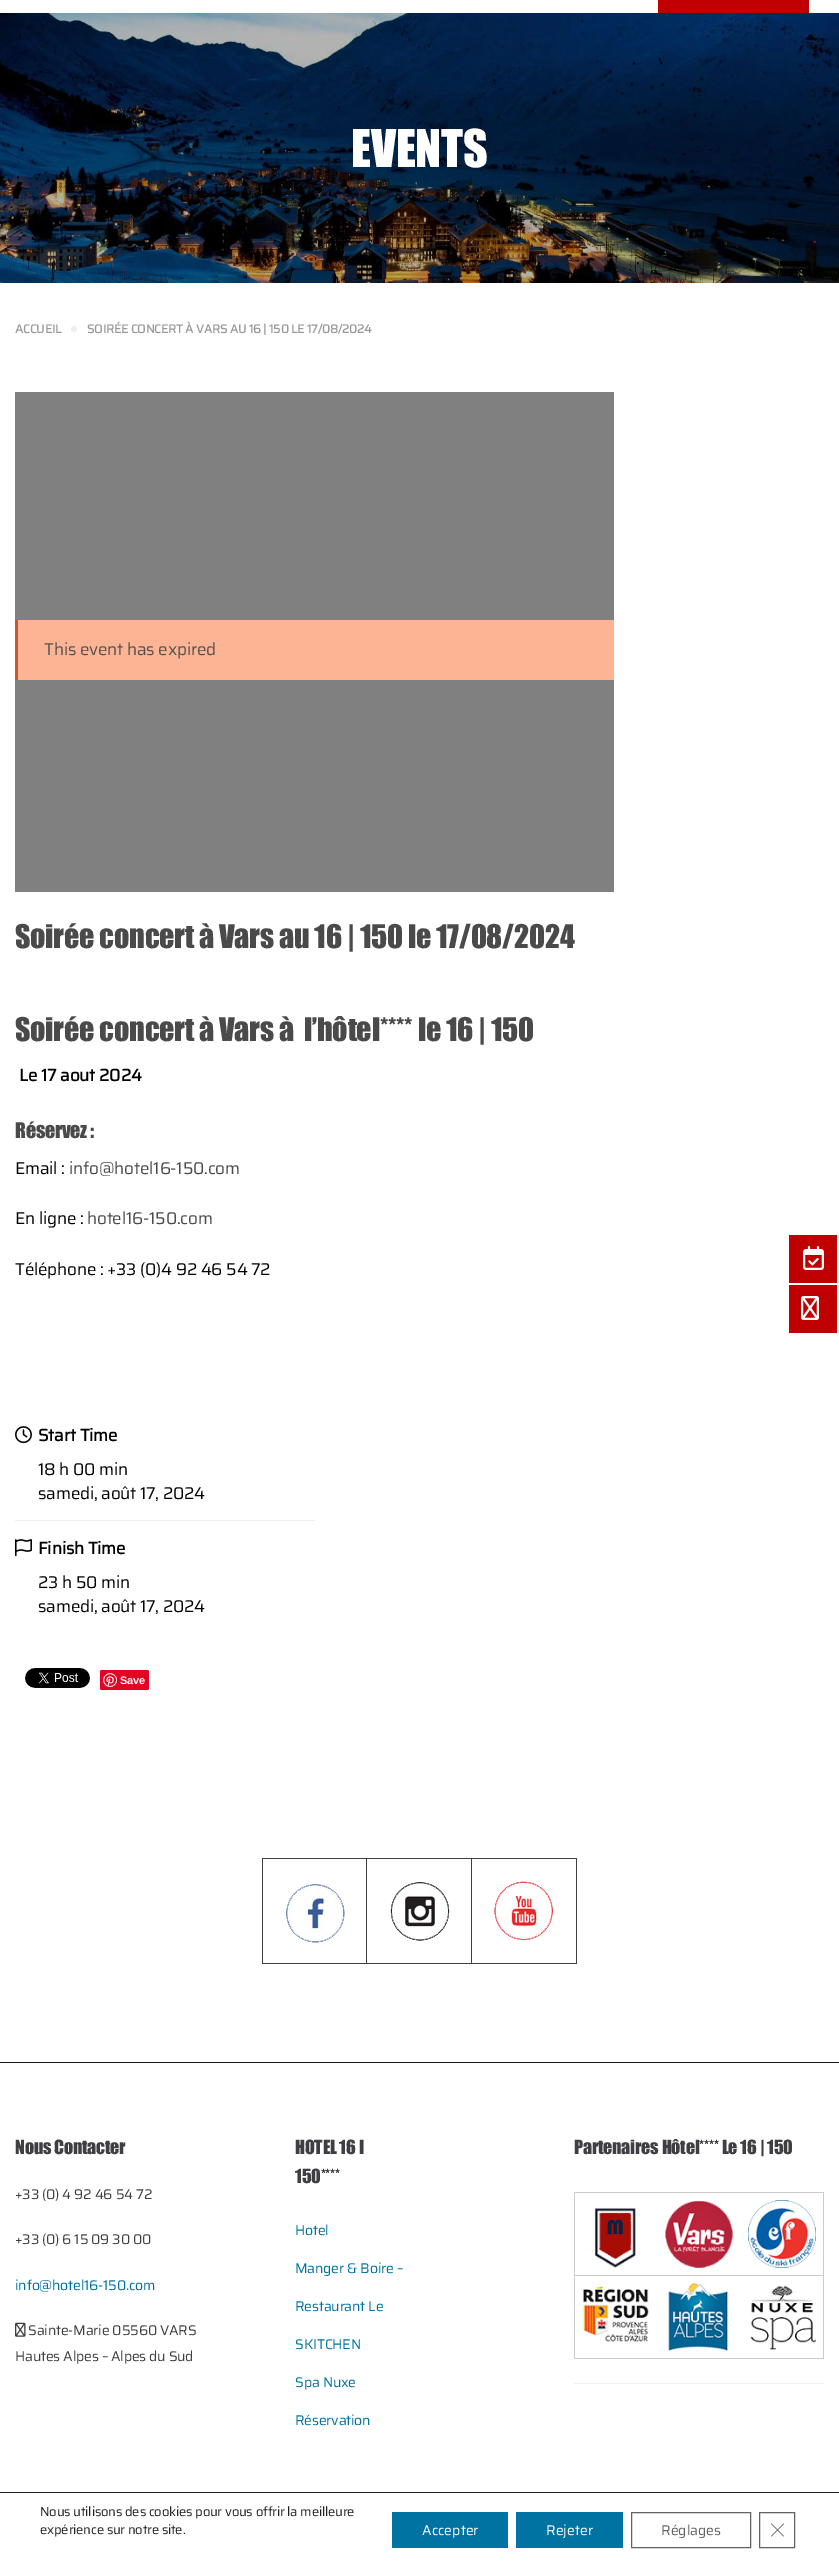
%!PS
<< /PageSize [839 2567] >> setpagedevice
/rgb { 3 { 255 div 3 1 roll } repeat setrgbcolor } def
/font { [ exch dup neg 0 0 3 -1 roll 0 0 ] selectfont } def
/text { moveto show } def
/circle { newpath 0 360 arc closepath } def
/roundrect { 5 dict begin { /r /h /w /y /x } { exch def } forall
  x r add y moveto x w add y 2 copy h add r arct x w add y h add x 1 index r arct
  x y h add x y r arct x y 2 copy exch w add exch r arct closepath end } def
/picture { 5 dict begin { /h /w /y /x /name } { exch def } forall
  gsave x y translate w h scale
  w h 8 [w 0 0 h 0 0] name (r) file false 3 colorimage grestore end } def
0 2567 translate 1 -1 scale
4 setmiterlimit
255 255 255 rgb
0 0 839 2567 rectfill
192 0 0 rgb
658 0 151 13 rectfill
(img_01.rgb) 0 13 839 270 picture
238 238 238 rgb
74 329 3 circle fill
128 128 128 rgb
15 392 599 500 rectfill
253 180 148 rgb
18 620 596 60 rectfill
195 90 44 rgb
15 620 3 60 rectfill
238 238 238 rgb
15 1520 300 1 rectfill
(img_02.rgb) 15 1426 17 18 picture
(img_03.rgb) 15 1539 17 18 picture
(img_04.rgb) 25 1668 65 20 picture
230 0 35 rgb
100 1670 49 20 2 roundrect fill
(img_05.rgb) 103 1673 14 14 picture
19 23 41 rgb
0 2062 839 1 rectfill
63 62 67 rgb
471 1858 106 1 rectfill
576 1858 1 106 rectfill
471 1963 106 1 rectfill
471 1858 1 106 rectfill
366 1858 106 1 rectfill
366 1963 106 1 rectfill
366 1858 1 106 rectfill
262 1858 105 1 rectfill
262 1963 105 1 rectfill
262 1858 1 106 rectfill
(img_06.rgb) 286 1884 59 59 picture
(img_07.rgb) 390 1882 60 59 picture
(img_08.rgb) 494 1881 59 59 picture
(img_09.rgb) 15 2322 11 15 picture
240 240 240 rgb
574 2383 250 1 rectfill
204 204 204 rgb
574 2192 250 1 rectfill
823 2192 1 167 rectfill
574 2358 250 1 rectfill
574 2192 1 167 rectfill
(img_10.rgb) 585 2207 51 61 picture
(img_11.rgb) 665 2200 68 68 picture
(img_12.rgb) 748 2200 68 68 picture
574 2275 250 1 rectfill
(img_13.rgb) 582 2286 67 56 picture
(img_14.rgb) 668 2283 60 68 picture
(img_15.rgb) 750 2285 66 65 picture
192 0 0 rgb
789 1235 48 48 rectfill
(img_16.rgb) 803 1246 21 24 picture
789 1285 48 48 rectfill
(img_17.rgb) 801 1296 18 24 picture
32 32 32 rgb
0 2492 839 1 rectfill
0 115 162 rgb
392 2512 116 36 rectfill
516 2512 107 36 rectfill
99 99 99 rgb
631.5 2512.5 119 35 rectstroke
98 98 98 rgb
759.5 2512.5 35 35 rectstroke
783.5 2523.5 moveto 0.5 0.5 rlineto -12.5 12.5 rlineto -0.5 -0.5 rlineto closepath fill
771 2524 moveto 0.5 -0.5 rlineto 12.5 12.5 rlineto -0.5 0.5 rlineto closepath fill
/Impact-Regular 48 font
255 255 255 rgb
351 167 moveto -0.2 0 (EVENTS) ashow
/Saira-Bold 12 font
154 154 154 rgb
15 333 moveto -0.2 0 (ACCUEIL) ashow
87 333 moveto -0.2 0 (SOIRÉE CONCERT À VARS AU 16 | 150 LE 17/08/2024) ashow
/Saira-Regular 17 font
81 81 81 rgb
44 655 moveto -0.2 0 (This event has expired) ashow
/Impact-Regular 30 font
74 74 74 rgb
15 948 moveto -0.2 0 (Soirée concert à Vars au 16 | 150 le 17/08/2024) ashow
15 1041 moveto -0.2 0 (Soirée concert à Vars à  l’hôtel**** le 16 | 150) ashow
/Saira-Bold 17 font
0 0 0 rgb
19 1081 moveto -0.2 0 (Le 17 aout 2024) ashow
/Impact-Regular 20 font
74 74 74 rgb
15 1138 moveto -0.2 0 (Réservez :) ashow
/Saira-Regular 17 font
0 0 0 rgb
15 1174 moveto -0.2 0 (Email :) ashow
74 74 74 rgb
69 1174 moveto -0.2 0 (info@hotel16-150.com) ashow
0 0 0 rgb
15 1224 moveto -0.2 0 (En ligne :) ashow
74 74 74 rgb
87 1224 moveto -0.2 0 (hotel16-150.com) ashow
0 0 0 rgb
15 1275 moveto -0.2 0 (Téléphone : +33 \(0\)4 92 46 54 72) ashow
/Saira-Bold 17 font
38 1441 moveto -0.2 0 (Start Time) ashow
/Saira-Regular 17 font
38 1475 moveto -0.2 0 (18 h 00 min) ashow
38 1499 moveto -0.2 0 (samedi, août 17, 2024) ashow
/Saira-Bold 17 font
38 1554 moveto -0.2 0 (Finish Time) ashow
/Saira-Regular 17 font
38 1588 moveto -0.2 0 (23 h 50 min) ashow
38 1612 moveto -0.2 0 (samedi, août 17, 2024) ashow
/LiberationSans-Bold 11 font
255 255 255 rgb
120 1684 moveto -0.2 0 (Save) ashow
/Impact-Regular 18 font
63 62 67 rgb
15 2154 moveto -0.2 0 (Nous Contacter) ashow
/Saira-Regular 14 font
15 2199 moveto -0.2 0 (+33 \(0\) 4 92 46 54 72) ashow
15 2244 moveto -0.2 0 (+33 \(0\) 6 15 09 30 00) ashow
0 115 162 rgb
15 2290 moveto -0.2 0 (info@hotel16-150.com) ashow
63 62 67 rgb
28 2335 moveto -0.2 0 (Sainte-Marie 05560 VARS) ashow
15 2361 moveto -0.2 0 (Hautes Alpes – Alpes du Sud) ashow
/Impact-Regular 18 font
295 2154 moveto -0.2 0 (HOTEL 16 I) ashow
295 2183 moveto -0.2 0 (150****) ashow
/Saira-Regular 14 font
0 115 162 rgb
295 2235 moveto -0.2 0 (Hotel) ashow
295 2273 moveto -0.2 0 (Manger & Boire –) ashow
295 2311 moveto -0.2 0 (Restaurant Le) ashow
295 2349 moveto -0.2 0 (SKITCHEN) ashow
295 2387 moveto -0.2 0 (Spa Nuxe) ashow
295 2425 moveto -0.2 0 (Réservation) ashow
/Impact-Regular 18 font
63 62 67 rgb
574 2154 moveto -0.2 0 (Partenaires Hôtel**** Le 16 | 150) ashow
/Saira-Regular 13 font
32 32 32 rgb
40 2516 moveto -0.2 0 (Nous utilisons des cookies pour vous offrir la meilleure) ashow
40 2534 moveto -0.2 0 (expérience sur notre site.) ashow
/Saira-Regular 14 font
255 255 255 rgb
(Accepter) 422 2535 text
(Rejeter) 546 2535 text
99 99 99 rgb
(Réglages) 661 2535 text
showpage
